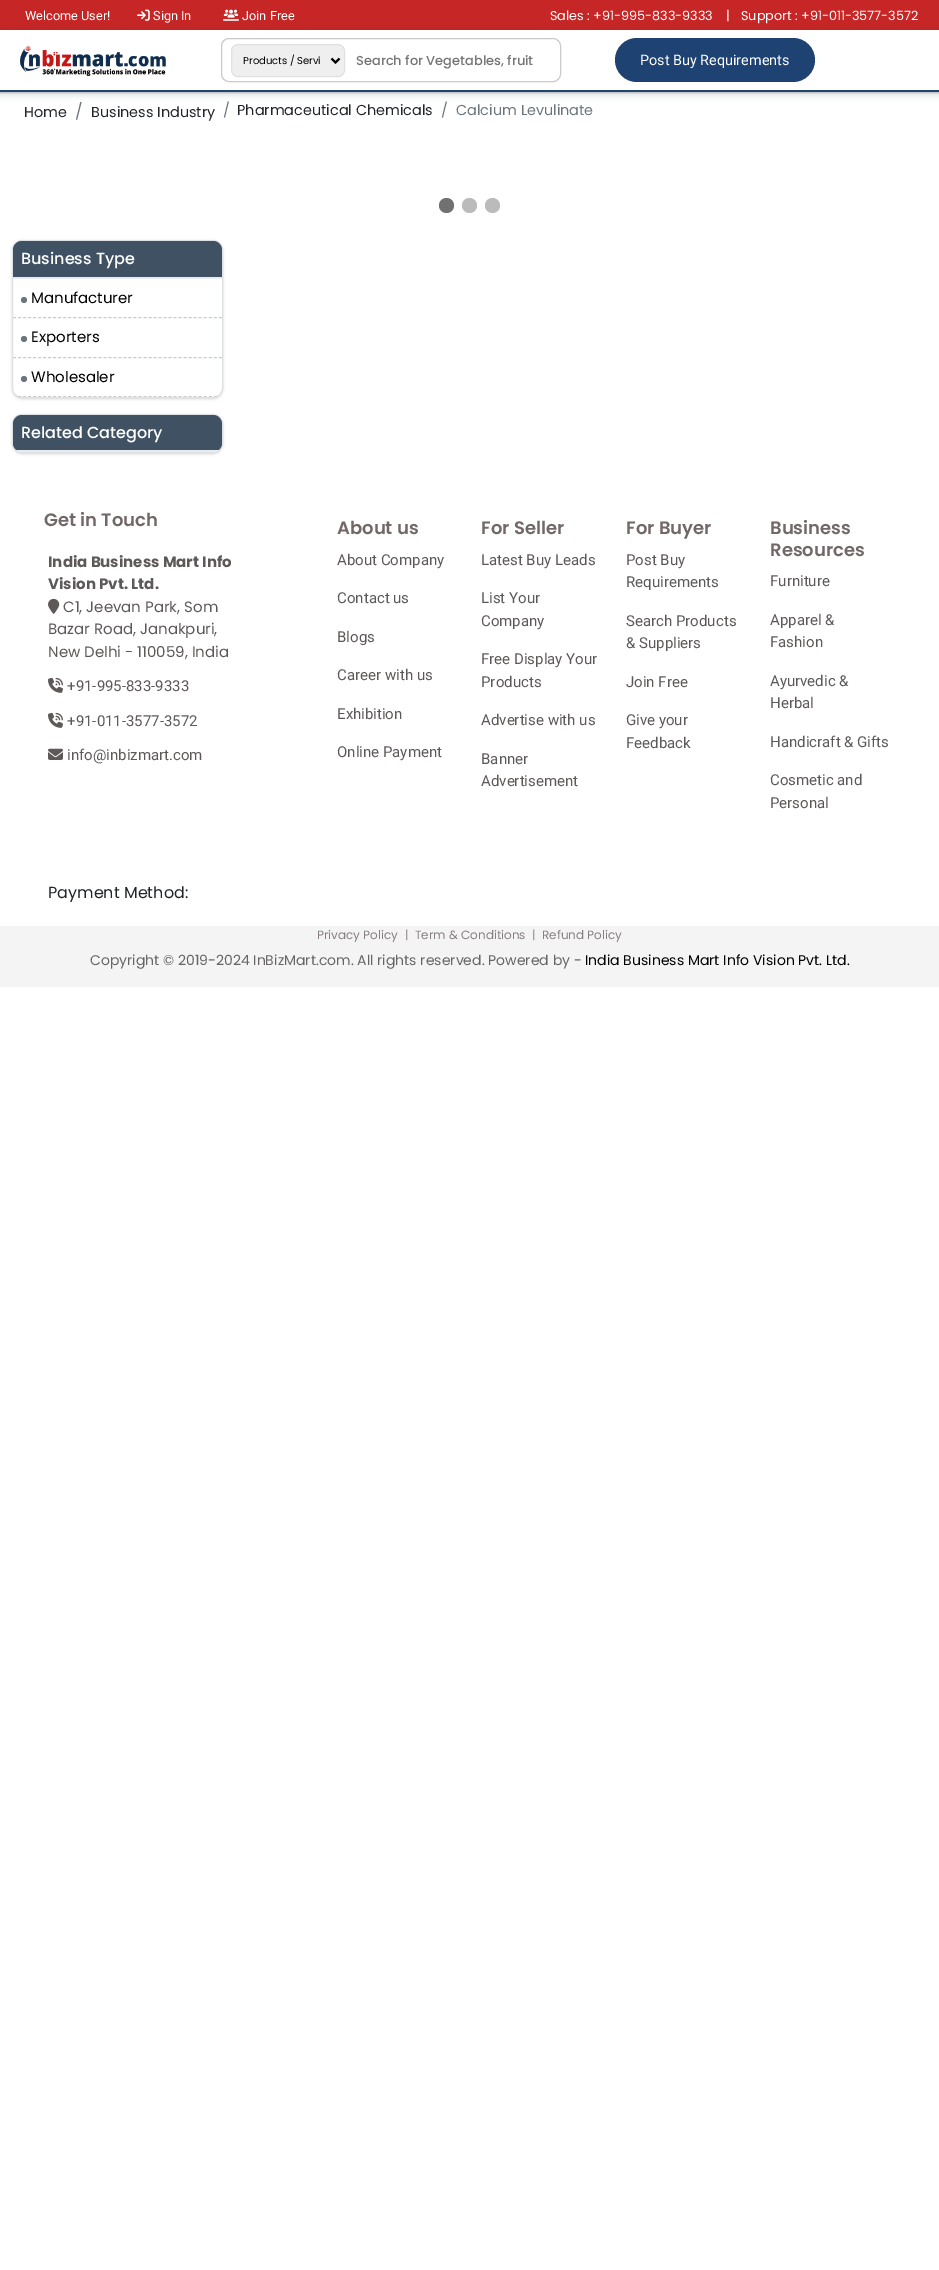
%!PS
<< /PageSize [939 2270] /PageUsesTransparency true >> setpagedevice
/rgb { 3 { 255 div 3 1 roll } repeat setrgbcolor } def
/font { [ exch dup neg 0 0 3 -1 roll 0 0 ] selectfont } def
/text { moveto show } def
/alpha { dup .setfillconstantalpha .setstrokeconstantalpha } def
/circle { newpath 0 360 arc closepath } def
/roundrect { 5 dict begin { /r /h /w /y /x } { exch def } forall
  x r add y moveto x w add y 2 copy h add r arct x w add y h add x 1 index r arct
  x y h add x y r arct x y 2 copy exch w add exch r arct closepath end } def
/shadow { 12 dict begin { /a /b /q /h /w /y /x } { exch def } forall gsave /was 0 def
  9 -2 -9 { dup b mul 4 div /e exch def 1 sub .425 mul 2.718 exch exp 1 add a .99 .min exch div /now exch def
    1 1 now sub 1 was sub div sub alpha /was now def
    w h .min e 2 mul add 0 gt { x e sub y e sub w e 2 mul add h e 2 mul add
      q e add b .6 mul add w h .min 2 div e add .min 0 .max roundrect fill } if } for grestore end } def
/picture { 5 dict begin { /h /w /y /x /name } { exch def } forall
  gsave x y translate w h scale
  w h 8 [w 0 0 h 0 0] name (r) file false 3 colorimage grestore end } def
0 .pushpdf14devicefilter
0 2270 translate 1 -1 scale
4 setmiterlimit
255 255 255 rgb
0 0 939 2270 rectfill
198 38 37 rgb
0 0 939 30 rectfill
gsave
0 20 moveto 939 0 rlineto 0 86 rlineto -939 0 rlineto closepath 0 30 moveto 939 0 rlineto 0 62 rlineto -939 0 rlineto closepath eoclip newpath
60 64 67 rgb
-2 30 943 66 0 3 0.15 shadow
grestore
(img_01.rgb) 137 9 13 12 picture
(img_02.rgb) 223 9 16 12 picture
gsave
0 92 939 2 rectclip
60 64 67 rgb
0 31 939 62 0 1 0.3 shadow
grestore
32 69 110 rgb
0 90 939 2 rectfill
(img_03.rgb) 20 46 146 31 picture
201 202 204 rgb
221.5 38.5 339 43 7.5 roundrect stroke
239 239 239 rgb
231.5 44.5 113 32 6.5 roundrect gsave fill grestore
225 225 225 rgb
stroke
0 0 0 rgb
2 setlinewidth
331.5 58.5 moveto 4 4 rlineto 4 -4 rlineto stroke
30 66 114 rgb
615 38 200 44 22 roundrect fill
113 113 113 rgb
446.5 205.5 7.5 circle fill
187 187 187 rgb
469.5 205.5 7.5 circle fill
492.5 205.5 7.5 circle fill
gsave
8 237 moveto 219 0 rlineto 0 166 rlineto -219 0 rlineto closepath 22 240 moveto 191 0 rlineto 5.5 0 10 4.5 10 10 rcurveto 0 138 rlineto 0 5.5 -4.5 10 -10 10 rcurveto -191 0 rlineto -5.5 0 -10 -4.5 -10 -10 rcurveto 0 -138 rlineto 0 -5.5 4.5 -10 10 -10 rcurveto closepath eoclip newpath
0 0 0 rgb
12 241 211 158 10 1 0.06 shadow
grestore
gsave
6 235 moveto 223 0 rlineto 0 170 rlineto -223 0 rlineto closepath 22 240 moveto 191 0 rlineto 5.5 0 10 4.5 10 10 rcurveto 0 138 rlineto 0 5.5 -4.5 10 -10 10 rcurveto -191 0 rlineto -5.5 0 -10 -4.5 -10 -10 rcurveto 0 -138 rlineto 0 -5.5 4.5 -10 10 -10 rcurveto closepath eoclip newpath
0 0 0 rgb
12 241 211 158 10 1.5 0.1 shadow
grestore
222 226 230 rgb
1 setlinewidth
12.5 240.5 210 157 9.5 roundrect stroke
63 81 99 rgb
22 241 moveto 191 0 rlineto 5 0 9 4 9 9 rcurveto 0 29 rlineto -209 0 rlineto 0 -29 rlineto 0 -5 4 -9 9 -9 rcurveto closepath fill
233 236 239 rgb
13 277 209 2 rectfill
204 204 204 rgb
[3 2.02] 0 setdash
13 317.5 moveto 209 0 rlineto stroke
108 117 125 rgb
24 300 3 circle fill
204 204 204 rgb
13 357.5 moveto 209 0 rlineto stroke
108 117 125 rgb
24 339 3 circle fill
gsave
13 241 209 156 9 roundrect clip newpath
204 204 204 rgb
13 396.5 moveto 209 0 rlineto stroke
grestore
24 379 3 circle fill
0 0 0 rgb
12 415 211 39 10 1 0.06 shadow
12 415 211 39 10 1.5 0.1 shadow
222 226 230 rgb
[] 0 setdash
12.5 414.5 210 38 9.5 roundrect stroke
63 81 99 rgb
13 415 209 37 9 roundrect fill
gsave
13 415 209 37 9 roundrect clip newpath
233 236 239 rgb
13 450 209 2 rectfill
grestore
(img_04.rgb) 48 598 12 16 picture
(img_05.rgb) 48 677 15 16 picture
(img_05.rgb) 48 712 15 16 picture
(img_06.rgb) 48 748 15 12 picture
244 244 244 rgb
0 926 939 61 rectfill
/Roboto-Regular 12.75 font
255 255 255 rgb
(Welcome User!) 25 20 text
(Sign In) 153 20 text
(Join Free) 242 20 text
/Poppins-Regular 12.75 font
(Sales : +91-995-833-9333    |) 550 20 text
(Support : +91-011-3577-3572) 741 20 text
/Poppins-Regular 10 font
0 0 0 rgb
(Products / Servi) 243 64 text
/Poppins-Medium 13 font
117 117 117 rgb
(Search for Vegetables, fruit) 356 65 text
/Roboto-Regular 14.4 font
255 255 255 rgb
(Post Buy Requirements) 640 65 text
/Poppins-Regular 14.4 font
33 37 41 rgb
(Home) 24 117 text
/Poppins-Regular 16 font
108 117 125 rgb
(/) 75 117 text
/Poppins-Regular 14.4 font
33 37 41 rgb
(Business Industry) 91 117 text
108 117 125 rgb
(/) 223 115 text
33 37 41 rgb
(Pharmaceutical Chemicals) 237 115 text
108 117 125 rgb
(/) 441 115 text
(Calcium Levulinate) 456 115 text
/Poppins-Medium 16 font
255 255 255 rgb
(Business Type) 21 264 text
/Poppins-Regular 15 font
0 0 0 rgb
(Manufacturer) 31 303 text
(Exporters) 31 342 text
(Wholesaler) 31 382 text
/Poppins-Medium 16 font
255 255 255 rgb
(Related Category) 21 438 text
/Poppins-SemiBold 18 font
114 104 104 rgb
(Get in Touch) 44 526 text
/Poppins-Bold 15 font
94 89 89 rgb
(India Business Mart Info) 48 567 text
(Vision Pvt. Ltd.) 48 589 text
/Poppins-Regular 15 font
(C1, Jeevan Park, Som) 63 612 text
(Bazar Road, Janakpuri,) 48 634 text
(New Delhi - 110059, India) 48 657 text
/Roboto-Regular 15 font
(+91-995-833-9333) 67 691 text
(+91-011-3577-3572) 67 726 text
(info@inbizmart.com) 67 760 text
/Poppins-SemiBold 18 font
114 104 104 rgb
(About us) 337 534 text
/Roboto-Regular 15 font
94 89 89 rgb
(About Company) 337 565 text
(Contact us) 337 603 text
(Blogs) 337 642 text
(Career with us) 337 680 text
(Exhibition) 337 719 text
(Online Payment) 337 757 text
/Poppins-SemiBold 18 font
114 104 104 rgb
(For Seller) 481 534 text
/Roboto-Regular 15 font
94 89 89 rgb
(Latest Buy Leads) 481 565 text
(List Your) 481 603 text
(Company) 481 626 text
(Free Display Your) 481 664 text
(Products) 481 687 text
(Advertise with us) 481 725 text
(Banner) 481 764 text
(Advertisement) 481 786 text
/Poppins-SemiBold 18 font
114 104 104 rgb
(For Buyer) 626 534 text
/Roboto-Regular 15 font
94 89 89 rgb
(Post Buy) 626 565 text
(Requirements) 626 587 text
(Search Products) 626 626 text
(& Suppliers) 626 648 text
(Join Free) 626 687 text
(Give your) 626 725 text
(Feedback) 626 748 text
/Poppins-SemiBold 18 font
114 104 104 rgb
(Business) 770 534 text
(Resources) 770 556 text
/Roboto-Regular 15 font
94 89 89 rgb
(Furniture) 770 586 text
(Apparel &) 770 625 text
(Fashion) 770 647 text
(Ayurvedic &) 770 686 text
(Herbal) 770 708 text
(Handicraft & Gifts) 770 747 text
(Cosmetic and) 770 785 text
(Personal) 770 808 text
/Poppins-Regular 16 font
33 37 41 rgb
(Payment Method:) 48 898 text
/Poppins-Regular 12 font
135 127 127 rgb
(Privacy Policy) 317 939 text
(|) 405 939 text
(Term & Conditions) 415 939 text
(|) 532 939 text
(Refund Policy) 542 939 text
/Poppins-Regular 14 font
104 101 101 rgb
(Copyright © 2019-2024 InBizMart.com. All rights reserved. Powered by -) 90 965 text
0 0 0 rgb
(India Business Mart Info Vision Pvt. Ltd.) 585 965 text
.poppdf14devicefilter showpage
